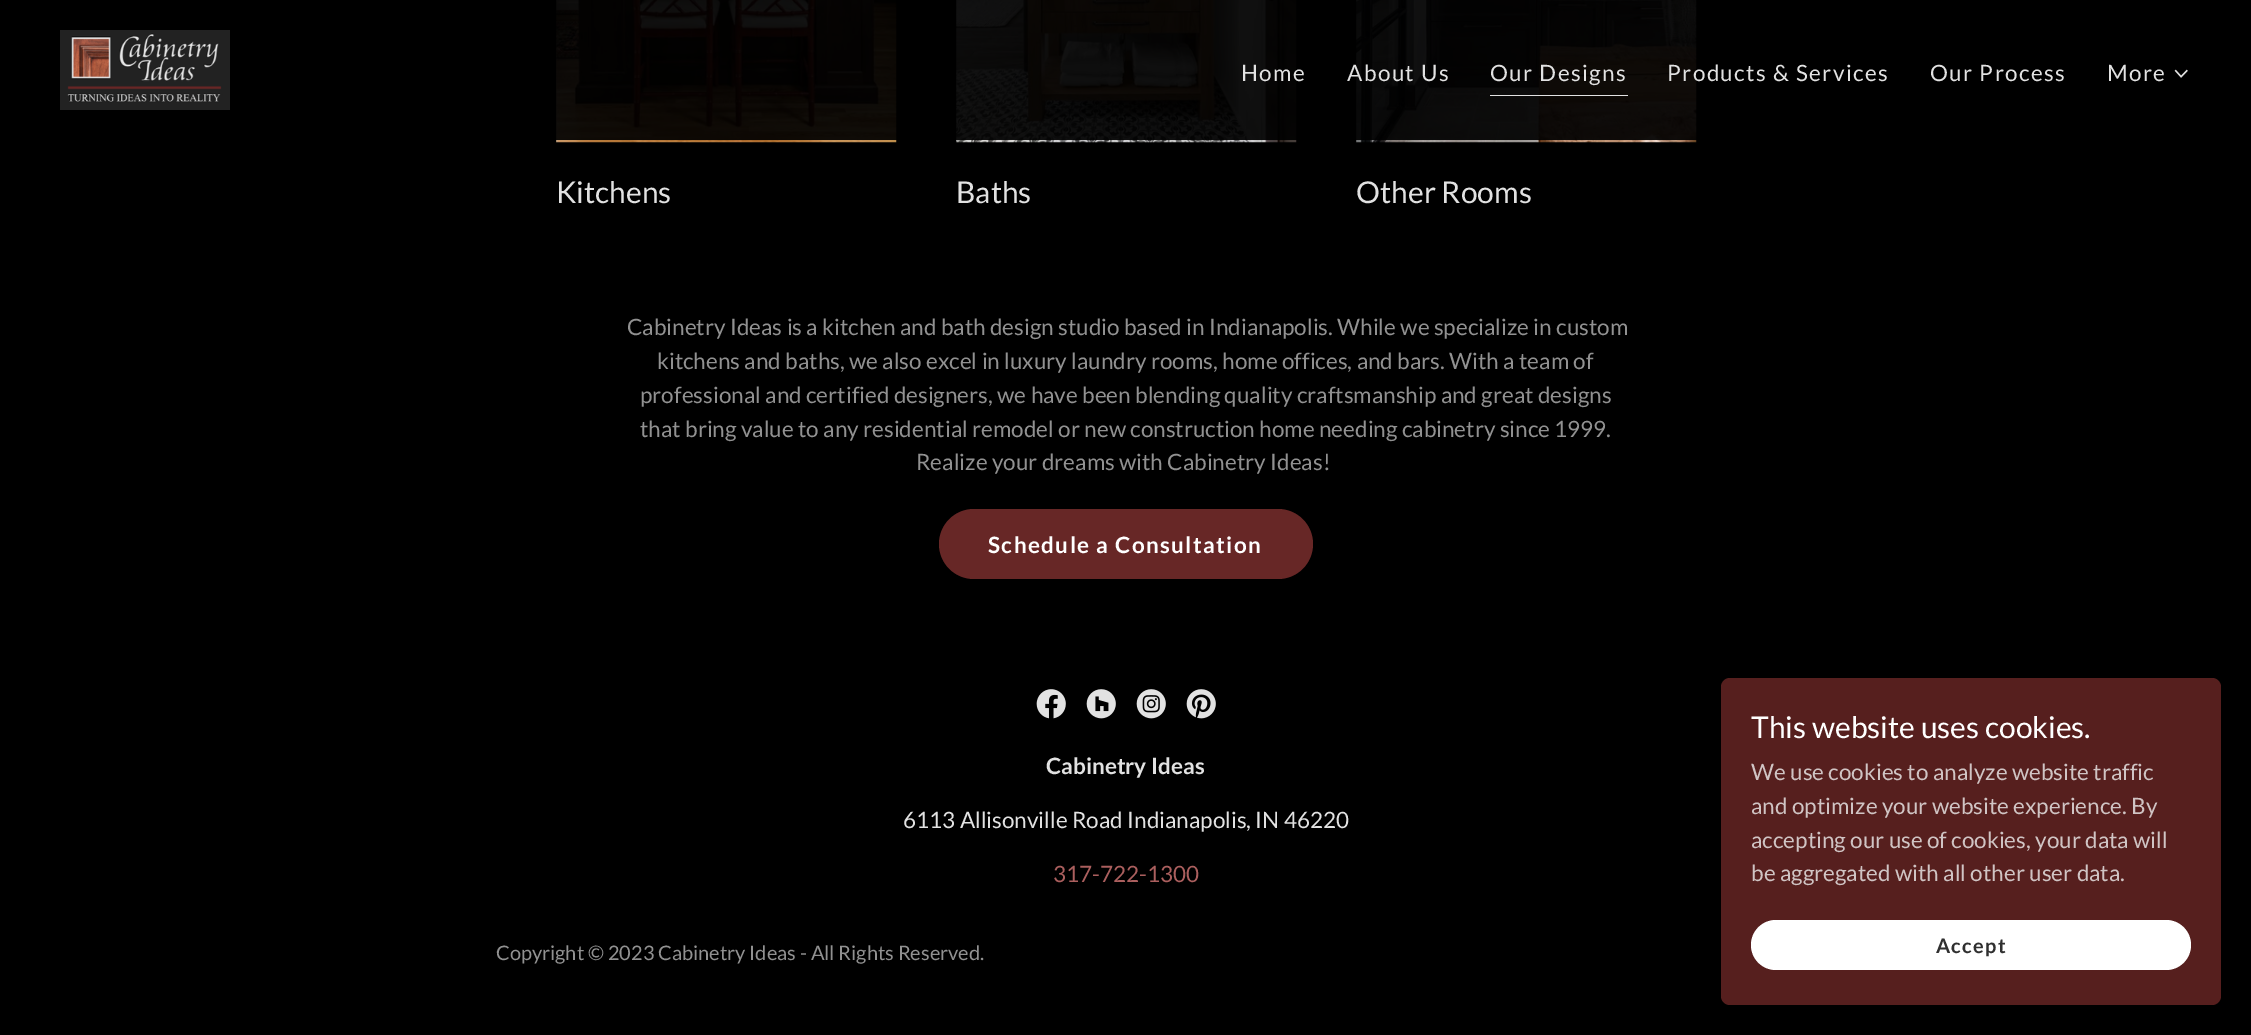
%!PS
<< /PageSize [2251 1035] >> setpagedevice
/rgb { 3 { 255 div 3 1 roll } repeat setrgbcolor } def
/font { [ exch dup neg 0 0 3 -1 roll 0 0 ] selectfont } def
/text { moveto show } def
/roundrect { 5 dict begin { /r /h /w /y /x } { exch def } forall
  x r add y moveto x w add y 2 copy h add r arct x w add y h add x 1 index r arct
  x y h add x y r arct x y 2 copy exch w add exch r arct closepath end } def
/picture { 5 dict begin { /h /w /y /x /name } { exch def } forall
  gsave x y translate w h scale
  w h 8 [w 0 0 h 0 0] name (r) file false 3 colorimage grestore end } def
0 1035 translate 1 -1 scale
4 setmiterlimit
0 0 0 rgb
0 0 2251 1035 rectfill
(img_01.rgb) 60 30 170 80 picture
(img_05.rgb) 1356 0 341 143 picture
226 226 226 rgb
1490 95 138 1 rectfill
(img_02.rgb) 2174 69 14 9 picture
(img_03.rgb) 556 0 341 143 picture
(img_04.rgb) 956 0 341 143 picture
103 39 38 rgb
939 509 374 70 35 roundrect fill
(img_06.rgb) 1036 689 30 30 picture
(img_07.rgb) 1086 689 30 30 picture
(img_08.rgb) 1136 689 30 30 picture
(img_09.rgb) 1186 689 30 30 picture
86 31 30 rgb
1721 678 500 327 9 roundrect fill
255 255 255 rgb
1751 920 440 50 25 roundrect fill
/Lato-Regular 22.5 font
226 226 226 rgb
1241 81 moveto 1.4 0 (Home) ashow
1347 81 moveto 1.4 0 (About Us) ashow
1490 81 moveto 1.4 0 (Our Designs) ashow
1667 81 moveto 1.4 0 (Products & Services) ashow
1930 81 moveto 1.4 0 (Our Process) ashow
2107 81 moveto 1.4 0 (More) ashow
/Lato-Regular 30 font
(Kitchens) 556 203 text
(Baths) 956 203 text
(Other Rooms) 1356 203 text
/Lato-Regular 22.5 font
145 145 145 rgb
(Cabinetry Ideas is a kitchen and bath design studio based in Indianapolis. While we specialize in custom) 627 335 text
(kitchens and baths, we also excel in luxury laundry rooms, home offices, and bars. With a team of) 657 369 text
(professional and certified designers, we have been blending quality craftsmanship and great designs) 640 403 text
(that bring value to any residential remodel or new construction home needing cabinetry since 1999.) 640 437 text
(Realize your dreams with Cabinetry Ideas!) 916 470 text
/Lato-Bold 22.5 font
255 255 255 rgb
988 553 moveto 1.4 0 (Schedule a Consultation) ashow
226 226 226 rgb
(Cabinetry Ideas) 1046 774 text
/Lato-Regular 22.5 font
(6113 Allisonville Road Indianapolis, IN 46220) 903 828 text
171 95 94 rgb
(317-722-1300) 1053 882 text
/Lato-Regular 20 font
145 145 145 rgb
(Copyright © 2023 Cabinetry Ideas - All Rights Reserved.) 496 960 text
/Lato-Regular 30 font
255 255 255 rgb
(This website uses cookies.) 1751 738 text
/Lato-Regular 22.5 font
208 196 196 rgb
(We use cookies to analyze website traffic) 1751 780 text
(and optimize your website experience. By) 1751 814 text
(accepting our use of cookies, your data will) 1751 848 text
(be aggregated with all other user data.) 1751 881 text
/Lato-Bold 20 font
48 48 48 rgb
1936 953 moveto 1.25 0 (Accept) ashow
showpage
